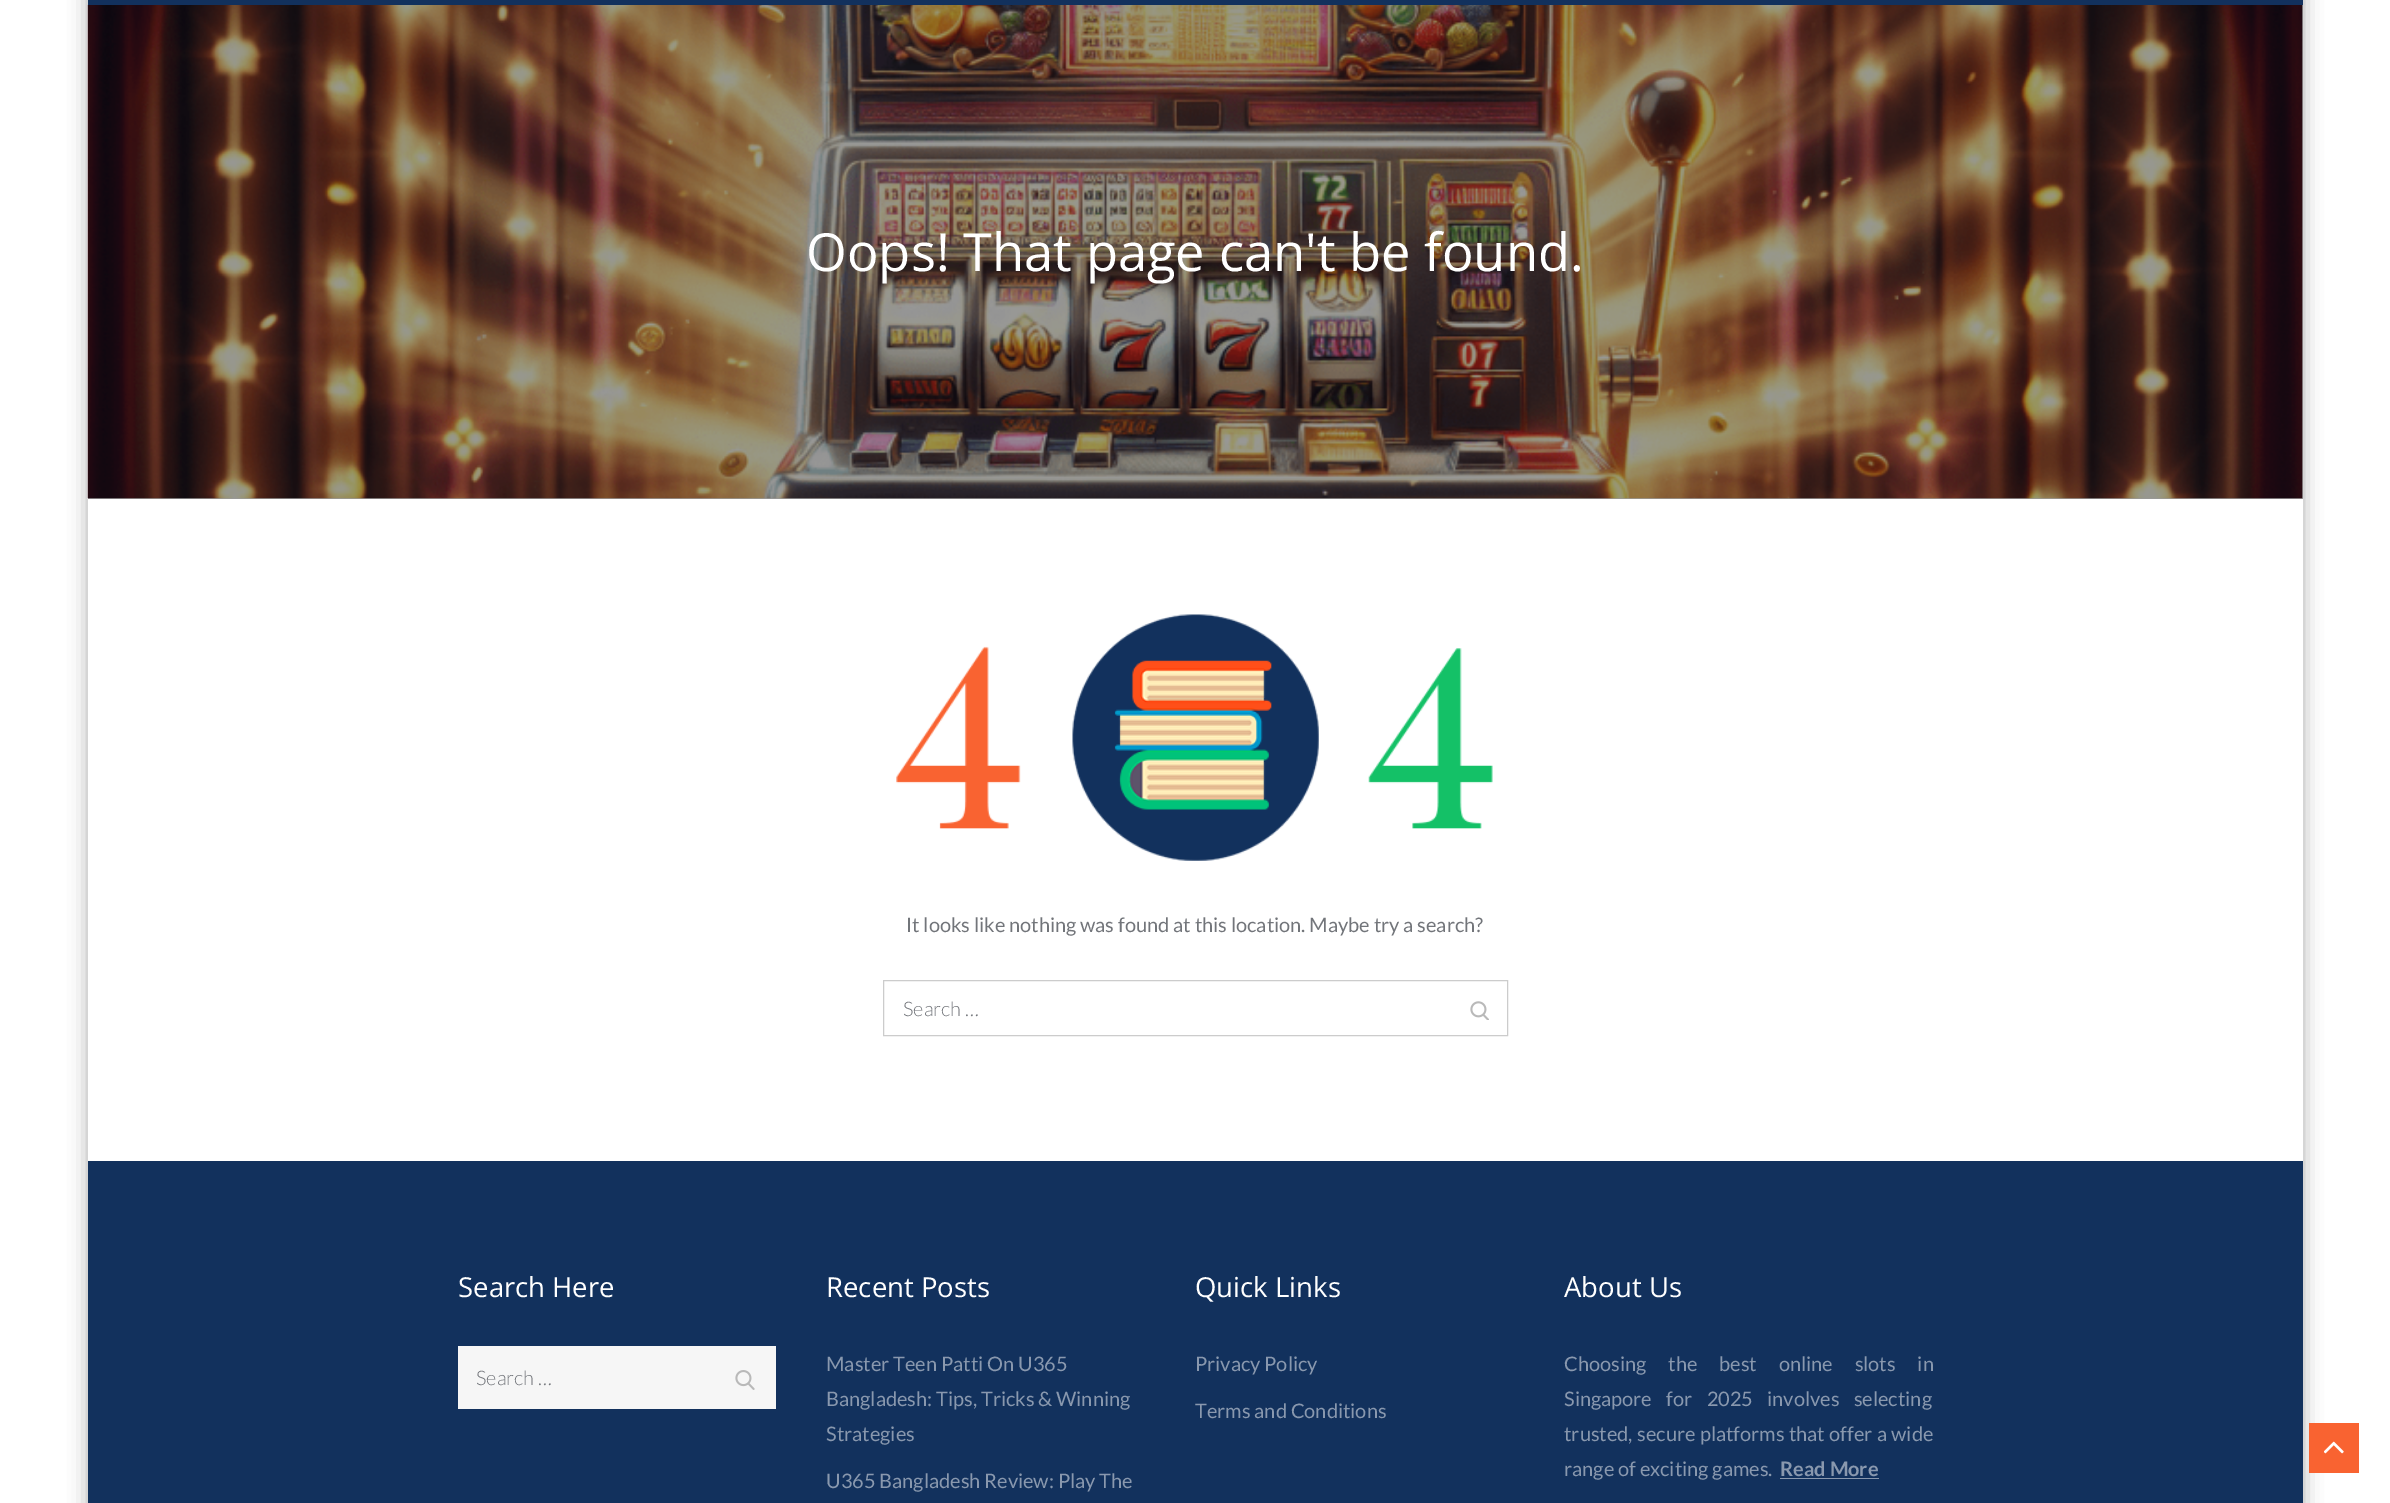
%!PS
<< /PageSize [2390 1503] /PageUsesTransparency true >> setpagedevice
/rgb { 3 { 255 div 3 1 roll } repeat setrgbcolor } def
/font { [ exch dup neg 0 0 3 -1 roll 0 0 ] selectfont } def
/text { moveto show } def
/alpha { dup .setfillconstantalpha .setstrokeconstantalpha } def
/roundrect { 5 dict begin { /r /h /w /y /x } { exch def } forall
  x r add y moveto x w add y 2 copy h add r arct x w add y h add x 1 index r arct
  x y h add x y r arct x y 2 copy exch w add exch r arct closepath end } def
/shadow { 12 dict begin { /a /b /q /h /w /y /x } { exch def } forall gsave /was 0 def
  9 -2 -9 { dup b mul 4 div /e exch def 1 sub .425 mul 2.718 exch exp 1 add a .99 .min exch div /now exch def
    1 1 now sub 1 was sub div sub alpha /was now def
    w h .min e 2 mul add 0 gt { x e sub y e sub w e 2 mul add h e 2 mul add
      q e add b .6 mul add w h .min 2 div e add .min 0 .max roundrect fill } if } for grestore end } def
/picture { 5 dict begin { /h /w /y /x /name } { exch def } forall
  gsave x y translate w h scale
  w h 8 [w 0 0 h 0 0] name (r) file false 3 colorimage grestore end } def
0 .pushpdf14devicefilter
0 1503 translate 1 -1 scale
4 setmiterlimit
255 255 255 rgb
0 0 2390 1503 rectfill
170 170 170 rgb
88 -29 2215 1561 0 9.5 1 shadow
255 255 255 rgb
88 5 2215 1156 rectfill
(img_01.rgb) 87 4 2216 495 picture
18 49 93 rgb
88 0 2215 5 rectfill
0.4 alpha
0 0 0 rgb
88 5 2215 494 rectfill
1 alpha
(img_02.rgb) 896 614 597 247 picture
204 204 204 rgb
883.5 980.5 624 55 rectstroke
(img_03.rgb) 1470 1001 19 19 picture
18 49 93 rgb
88 1161 2215 342 rectfill
246 246 246 rgb
458 1346 318 63 rectfill
(img_04.rgb) 735 1370 20 20 picture
137 152 174 rgb
1780 1478 99 1 rectfill
249 99 49 rgb
2309 1423 50 50 rectfill
(img_05.rgb) 2324 1441 20 13 picture
/OpenSans-Regular 52.5 font
255 255 255 rgb
(Oops! That page can't be found.) 806 271 text
/Lato-Regular 20 font
114 117 122 rgb
(It looks like nothing was found at this location. Maybe try a search?) 906 932 text
/Lato-Light 20 font
(Search …) 903 1016 text
/OpenSans-Regular 27.5 font
255 255 255 rgb
(Search Here) 458 1297 text
/Lato-Light 20 font
114 117 122 rgb
(Search …) 476 1385 text
/OpenSans-Regular 27.5 font
255 255 255 rgb
(Recent Posts) 826 1297 text
/Lato-Regular 20 font
137 152 174 rgb
(Master Teen Patti On U365) 826 1371 text
(Bangladesh: Tips, Tricks & Winning) 826 1406 text
(Strategies) 826 1441 text
(U365 Bangladesh Review: Play The) 826 1488 text
/OpenSans-Regular 27.5 font
255 255 255 rgb
(Quick Links) 1195 1297 text
/Lato-Regular 20 font
137 152 174 rgb
(Privacy Policy) 1195 1371 text
(Terms and Conditions) 1195 1418 text
/OpenSans-Regular 27.5 font
255 255 255 rgb
(About Us) 1564 1297 text
/Lato-Regular 20 font
137 152 174 rgb
1564 1371 moveto 18 0 32 (Choosing the best online slots in) widthshow
1564 1406 moveto 10.5 0 32 (Singapore for 2025 involves selecting) widthshow
1564 1441 moveto 0.5 0 32 (trusted, secure platforms that offer a wide) widthshow
(range of exciting games.) 1564 1476 text
/Lato-Bold 20 font
(Read More) 1780 1476 text
.poppdf14devicefilter showpage
